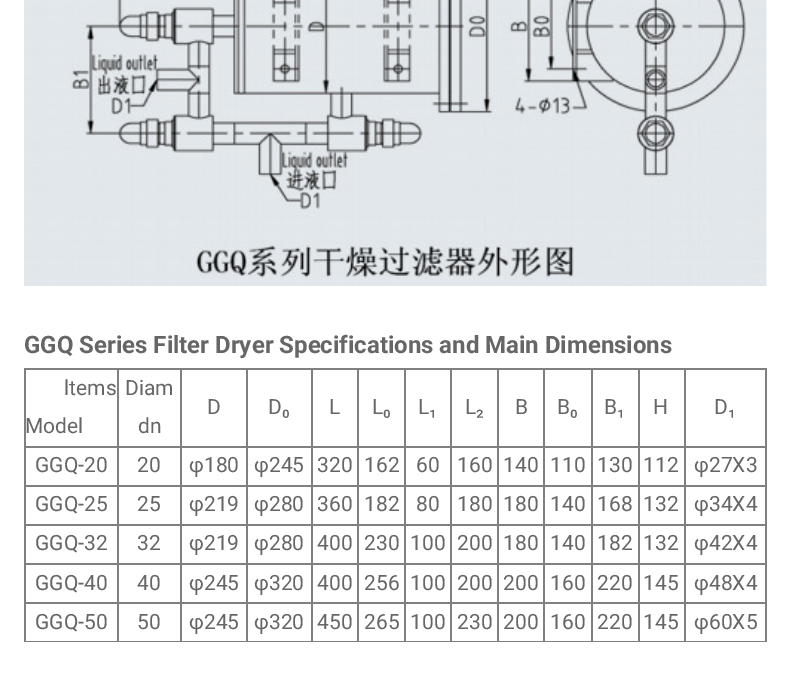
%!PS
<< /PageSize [790 693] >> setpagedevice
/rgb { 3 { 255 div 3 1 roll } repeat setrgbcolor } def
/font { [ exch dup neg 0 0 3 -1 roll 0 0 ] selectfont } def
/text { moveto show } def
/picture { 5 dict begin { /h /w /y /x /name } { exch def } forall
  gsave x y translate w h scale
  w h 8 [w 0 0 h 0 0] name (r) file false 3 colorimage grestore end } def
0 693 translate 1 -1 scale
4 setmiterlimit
255 255 255 rgb
0 0 790 693 rectfill
(img_01.rgb) 24 0 743 286 picture
128 128 128 rgb
24 368 743 2 rectfill
765 368 2 274 rectfill
24 641 743 1 rectfill
24 368 2 274 rectfill
684 446 83 2 rectfill
684 485 83 2 rectfill
684 524 83 2 rectfill
684 563 83 2 rectfill
684 602 83 2 rectfill
684 602 2 40 rectfill
638 602 48 2 rectfill
684 563 2 40 rectfill
638 563 48 2 rectfill
684 524 2 40 rectfill
638 524 48 2 rectfill
684 485 2 40 rectfill
638 485 48 2 rectfill
684 446 2 40 rectfill
638 446 48 2 rectfill
638 602 2 40 rectfill
591 602 48 2 rectfill
638 563 2 40 rectfill
591 563 48 2 rectfill
638 524 2 40 rectfill
591 524 48 2 rectfill
638 485 2 40 rectfill
591 485 48 2 rectfill
638 446 2 40 rectfill
591 446 48 2 rectfill
591 602 2 40 rectfill
543 602 50 2 rectfill
591 563 2 40 rectfill
543 563 50 2 rectfill
591 524 2 40 rectfill
543 524 50 2 rectfill
591 485 2 40 rectfill
543 485 50 2 rectfill
591 446 2 40 rectfill
543 446 50 2 rectfill
543 602 2 40 rectfill
497 602 48 2 rectfill
543 563 2 40 rectfill
497 563 48 2 rectfill
543 524 2 40 rectfill
497 524 48 2 rectfill
543 485 2 40 rectfill
497 485 48 2 rectfill
543 446 2 40 rectfill
497 446 48 2 rectfill
497 602 2 40 rectfill
450 602 48 2 rectfill
497 563 2 40 rectfill
450 563 48 2 rectfill
497 524 2 40 rectfill
450 524 48 2 rectfill
497 485 2 40 rectfill
450 485 48 2 rectfill
497 446 2 40 rectfill
450 446 48 2 rectfill
450 602 2 40 rectfill
404 602 48 2 rectfill
450 563 2 40 rectfill
404 563 48 2 rectfill
450 524 2 40 rectfill
404 524 48 2 rectfill
450 485 2 40 rectfill
404 485 48 2 rectfill
450 446 2 40 rectfill
404 446 48 2 rectfill
404 602 2 40 rectfill
357 602 48 2 rectfill
404 563 2 40 rectfill
357 563 48 2 rectfill
404 524 2 40 rectfill
357 524 48 2 rectfill
404 485 2 40 rectfill
357 485 48 2 rectfill
404 446 2 40 rectfill
357 446 48 2 rectfill
357 602 2 40 rectfill
311 602 48 2 rectfill
357 563 2 40 rectfill
311 563 48 2 rectfill
357 524 2 40 rectfill
311 524 48 2 rectfill
357 485 2 40 rectfill
311 485 48 2 rectfill
357 446 2 40 rectfill
311 446 48 2 rectfill
311 602 2 40 rectfill
246 602 66 2 rectfill
311 563 2 40 rectfill
246 563 66 2 rectfill
311 524 2 40 rectfill
246 524 66 2 rectfill
311 485 2 40 rectfill
246 485 66 2 rectfill
311 446 2 40 rectfill
246 446 66 2 rectfill
246 602 2 40 rectfill
180 602 68 2 rectfill
246 563 2 40 rectfill
180 563 68 2 rectfill
246 524 2 40 rectfill
180 524 68 2 rectfill
246 485 2 40 rectfill
180 485 68 2 rectfill
246 446 2 40 rectfill
180 446 68 2 rectfill
180 602 2 40 rectfill
117 602 65 2 rectfill
180 563 2 40 rectfill
117 563 65 2 rectfill
180 524 2 40 rectfill
117 524 65 2 rectfill
180 485 2 40 rectfill
117 485 65 2 rectfill
180 446 2 40 rectfill
117 446 65 2 rectfill
117 602 2 40 rectfill
24 602 95 2 rectfill
117 563 2 40 rectfill
24 563 95 2 rectfill
117 524 2 40 rectfill
24 524 95 2 rectfill
117 485 2 40 rectfill
24 485 95 2 rectfill
117 446 2 40 rectfill
24 446 95 2 rectfill
117 368 2 79 rectfill
180 368 2 79 rectfill
246 368 2 79 rectfill
311 368 2 79 rectfill
357 368 2 79 rectfill
404 368 2 79 rectfill
450 368 2 79 rectfill
497 368 2 79 rectfill
543 368 2 79 rectfill
591 368 2 79 rectfill
638 368 2 79 rectfill
684 368 2 79 rectfill
/Roboto-Bold 24 font
102 102 102 rgb
(GGQ Series Filter Dryer Specifications and Main Dimensions) 24 353 text
/Roboto-Regular 21 font
(ltems) 64 395 text
(Model) 25 433 text
(Diam) 125 395 text
(dn) 138 433 text
(D) 207 414 text
(D₀) 268 414 text
(L) 329 414 text
(L₀) 372 414 text
(L₁) 418 414 text
(L₂) 465 414 text
(B) 515 414 text
(B₀) 557 414 text
(B₁) 604 414 text
(H) 653 414 text
(D₁) 714 414 text
(GGQ-20) 35 472 text
(20) 137 472 text
(φ180) 189 472 text
(φ245) 254 472 text
(320) 317 472 text
(162) 364 472 text
(60) 416 472 text
(160) 457 472 text
(140) 503 472 text
(110) 550 472 text
(130) 597 472 text
(112) 643 472 text
(φ27X3) 694 472 text
(GGQ-25) 35 511 text
(25) 137 511 text
(φ219) 189 511 text
(φ280) 254 511 text
(360) 317 511 text
(182) 364 511 text
(80) 416 511 text
(180) 457 511 text
(180) 503 511 text
(140) 550 511 text
(168) 597 511 text
(132) 643 511 text
(φ34X4) 694 511 text
(GGQ-32) 35 550 text
(32) 137 550 text
(φ219) 189 550 text
(φ280) 254 550 text
(400) 317 550 text
(230) 364 550 text
(100) 410 550 text
(200) 457 550 text
(180) 503 550 text
(140) 550 550 text
(182) 597 550 text
(132) 643 550 text
(φ42X4) 694 550 text
(GGQ-40) 35 590 text
(40) 137 590 text
(φ245) 189 590 text
(φ320) 254 590 text
(400) 317 590 text
(256) 364 590 text
(100) 410 590 text
(200) 457 590 text
(200) 503 590 text
(160) 550 590 text
(220) 597 590 text
(145) 643 590 text
(φ48X4) 694 590 text
(GGQ-50) 35 629 text
(50) 137 629 text
(φ245) 189 629 text
(φ320) 254 629 text
(450) 317 629 text
(265) 364 629 text
(100) 410 629 text
(230) 457 629 text
(200) 503 629 text
(160) 550 629 text
(220) 597 629 text
(145) 643 629 text
(φ60X5) 694 629 text
showpage
